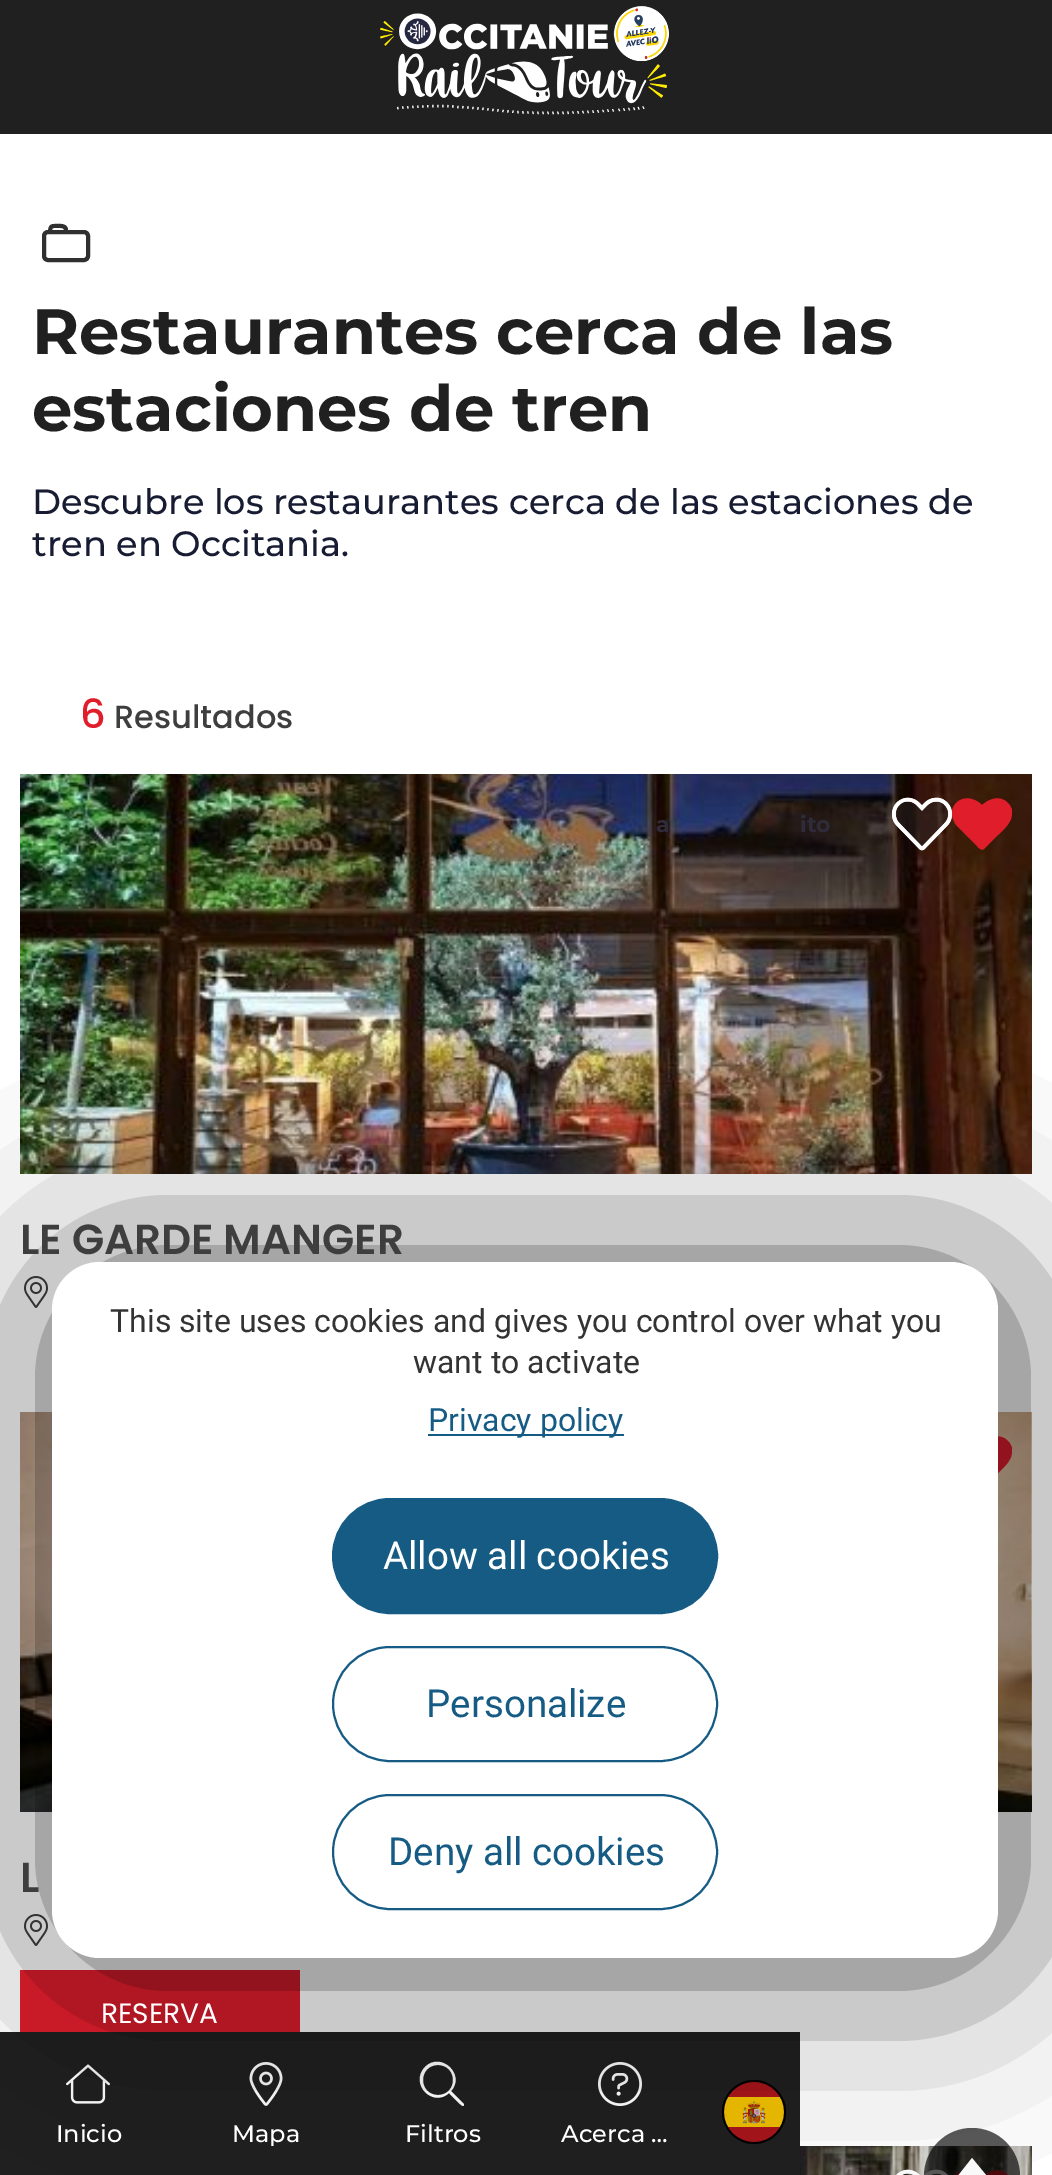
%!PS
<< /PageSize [1052 2175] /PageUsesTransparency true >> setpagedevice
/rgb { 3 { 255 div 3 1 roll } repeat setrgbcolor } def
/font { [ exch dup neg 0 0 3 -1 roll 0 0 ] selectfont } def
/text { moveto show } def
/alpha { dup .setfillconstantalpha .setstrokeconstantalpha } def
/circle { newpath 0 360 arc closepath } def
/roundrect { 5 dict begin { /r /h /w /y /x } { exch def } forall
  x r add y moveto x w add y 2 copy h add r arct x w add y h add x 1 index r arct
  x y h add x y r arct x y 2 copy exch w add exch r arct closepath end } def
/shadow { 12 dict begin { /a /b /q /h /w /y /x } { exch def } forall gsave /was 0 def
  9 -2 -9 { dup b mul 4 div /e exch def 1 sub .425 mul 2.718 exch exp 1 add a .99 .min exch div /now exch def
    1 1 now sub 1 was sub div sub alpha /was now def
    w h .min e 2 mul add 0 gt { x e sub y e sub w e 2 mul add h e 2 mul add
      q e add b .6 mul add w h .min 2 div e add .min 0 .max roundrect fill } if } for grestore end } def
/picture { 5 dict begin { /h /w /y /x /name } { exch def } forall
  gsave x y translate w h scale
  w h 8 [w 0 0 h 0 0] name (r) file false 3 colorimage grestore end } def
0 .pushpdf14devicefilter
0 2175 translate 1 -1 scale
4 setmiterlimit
255 255 255 rgb
0 0 1052 2175 rectfill
48 48 48 rgb
4 setlinewidth
44 232 44 28 4 roundrect stroke
54 224 moveto 4.5 0 12.5 -1.5 14 5 rcurveto 0 5 rlineto -20 0 rlineto 0 -4.5 0 -10 6 -10 rcurveto closepath 54 228 moveto 6.5 0 rlineto 4.5 0 3.5 2.5 3.5 6 rcurveto -12 0 rlineto 0 -1.5 -1 -6 2 -6 rcurveto closepath eofill
(img_01.rgb) 20 774 1012 400 picture
0.4 alpha
41 41 41 rgb
924 849 moveto -3 2 -6 -2 -7 -3 rcurveto -20 -20 rlineto -15 -19 7 -38 25 -21 rcurveto 6 -5 14 -9 22 -5 rcurveto 4 2 7 6 8 10 rcurveto 0 4 0 8 -2 11 rcurveto -3 6 -8 10 -13 15 rcurveto closepath fill
1 alpha
(img_02.rgb) 892 797 60 54 picture
(img_03.rgb) 892 797 60 54 picture
224 30 43 rgb
984 849 moveto -3 2 -6 -2 -7 -3 rcurveto -20 -20 rlineto -15 -19 7 -38 25 -21 rcurveto 6 -5 14 -9 22 -5 rcurveto 4 2 7 6 8 10 rcurveto 0 4 0 8 -2 11 rcurveto -3 6 -8 10 -13 15 rcurveto closepath fill
(img_04.rgb) 24 1276 24 32 picture
(img_05.rgb) 20 1412 1012 400 picture
984 1487 moveto -3 2 -6 -2 -7 -3 rcurveto -20 -20 rlineto -15 -19 7 -38 25 -21 rcurveto 6 -5 14 -9 22 -5 rcurveto 4 2 7 6 8 10 rcurveto 0 4 0 8 -2 11 rcurveto -3 6 -8 10 -13 15 rcurveto closepath fill
(img_04.rgb) 24 1914 24 32 picture
20 1970 280 62 rectfill
(img_06.rgb) 800 2146 232 29 picture
0.4 alpha
41 41 41 rgb
924 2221 moveto -3 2 -6 -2 -7 -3 rcurveto -20 -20 rlineto -15 -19 7 -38 25 -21 rcurveto 6 -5 14 -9 22 -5 rcurveto 4 2 7 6 8 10 rcurveto 0 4 0 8 -2 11 rcurveto -3 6 -8 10 -13 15 rcurveto closepath fill
1 alpha
(img_08.rgb) 896 2169 52 6 picture
(img_07.rgb) 896 2169 52 6 picture
224 30 43 rgb
984 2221 moveto -3 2 -6 -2 -7 -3 rcurveto -20 -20 rlineto -15 -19 7 -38 25 -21 rcurveto 6 -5 14 -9 22 -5 rcurveto 4 2 7 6 8 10 rcurveto 0 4 0 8 -2 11 rcurveto -3 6 -8 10 -13 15 rcurveto closepath fill
32 32 32 rgb
0 2032 800 143 rectfill
(img_10.rgb) 66 2064 44 40 picture
(img_11.rgb) 249 2062 34 44 picture
255 255 255 rgb
464 2104 moveto 0 0 0 2 -1 2 rcurveto -2 0 -12 -11 -14 -13 rcurveto -16 15 -40 -9 -24 -26 rcurveto 16 -16 41 8 26 24 rcurveto closepath 438 2095 moveto 20 0 20 -30 0 -30 rcurveto -20 0 -20 30 0 30 rcurveto closepath fill
(img_12.rgb) 598 2062 44 44 picture
0 0 0 rgb
754 2112 32 circle fill
0.4 alpha
2 setlinewidth
754 2112 31 circle stroke
1 alpha
(img_13.rgb) 724 2082 60 60 picture
0.65 alpha
924 2128 96 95 48 roundrect fill
1 alpha
255 255 255 rgb
950 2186 moveto 22 -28 rlineto 23 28 rlineto closepath fill
0 0 0 rgb
60 1270 946 696 48 100 0.7 shadow
255 255 255 rgb
52 1262 946 696 48 roundrect fill
21 91 132 rgb
428 1434 196 2 rectfill
333 1499 384 114 57 roundrect gsave fill grestore
stroke
333 1647 384 114 57 roundrect stroke
333 1795 384 114 57 roundrect stroke
32 32 32 rgb
0 0 1052 134 rectfill
(img_09.rgb) 380 6 289 109 picture
/Montserrat-Bold 64 font
(Restaurantes cerca de las) 32 354 text
(estaciones de tren) 32 431 text
/Montserrat-Medium 35.2 font
23 28 51 rgb
(Descubre los restaurantes cerca de las estaciones de) 32 514 text
(tren en Occitania.) 32 556 text
/Poppins-Medium 40 font
224 30 43 rgb
(6) 80 728 text
/Poppins-Medium 32 font
62 62 62 rgb
(Resultados) 114 728 text
/Montserrat-Bold 22 font
47 43 58 rgb
(a) 656 832 text
(ito) 800 832 text
/Poppins-SemiBold 42 font
62 62 62 rgb
(LE GARDE MANGER) 20 1254 text
(L) 20 1892 text
/Poppins-Regular 28 font
255 255 255 rgb
(RESERVA) 101 2023 text
/Roboto-Regular 32 font
51 51 51 rgb
(This site uses cookies and gives you control over what you) 110 1332 text
(want to activate) 413 1373 text
21 91 132 rgb
(Privacy policy) 428 1431 text
/Roboto-Regular 38.5 font
255 255 255 rgb
(Allow all cookies) 383 1569 text
21 91 132 rgb
(Personalize) 426 1717 text
(Deny all cookies) 388 1865 text
/Montserrat-Medium 24 font
255 255 255 rgb
(Inicio) 56 2142 text
gsave
206 2122 118 24 rectclip
(Mapa) 232 2142 text
grestore
(Filtros) 405 2142 text
(Acerca …) 561 2142 text
.poppdf14devicefilter showpage
